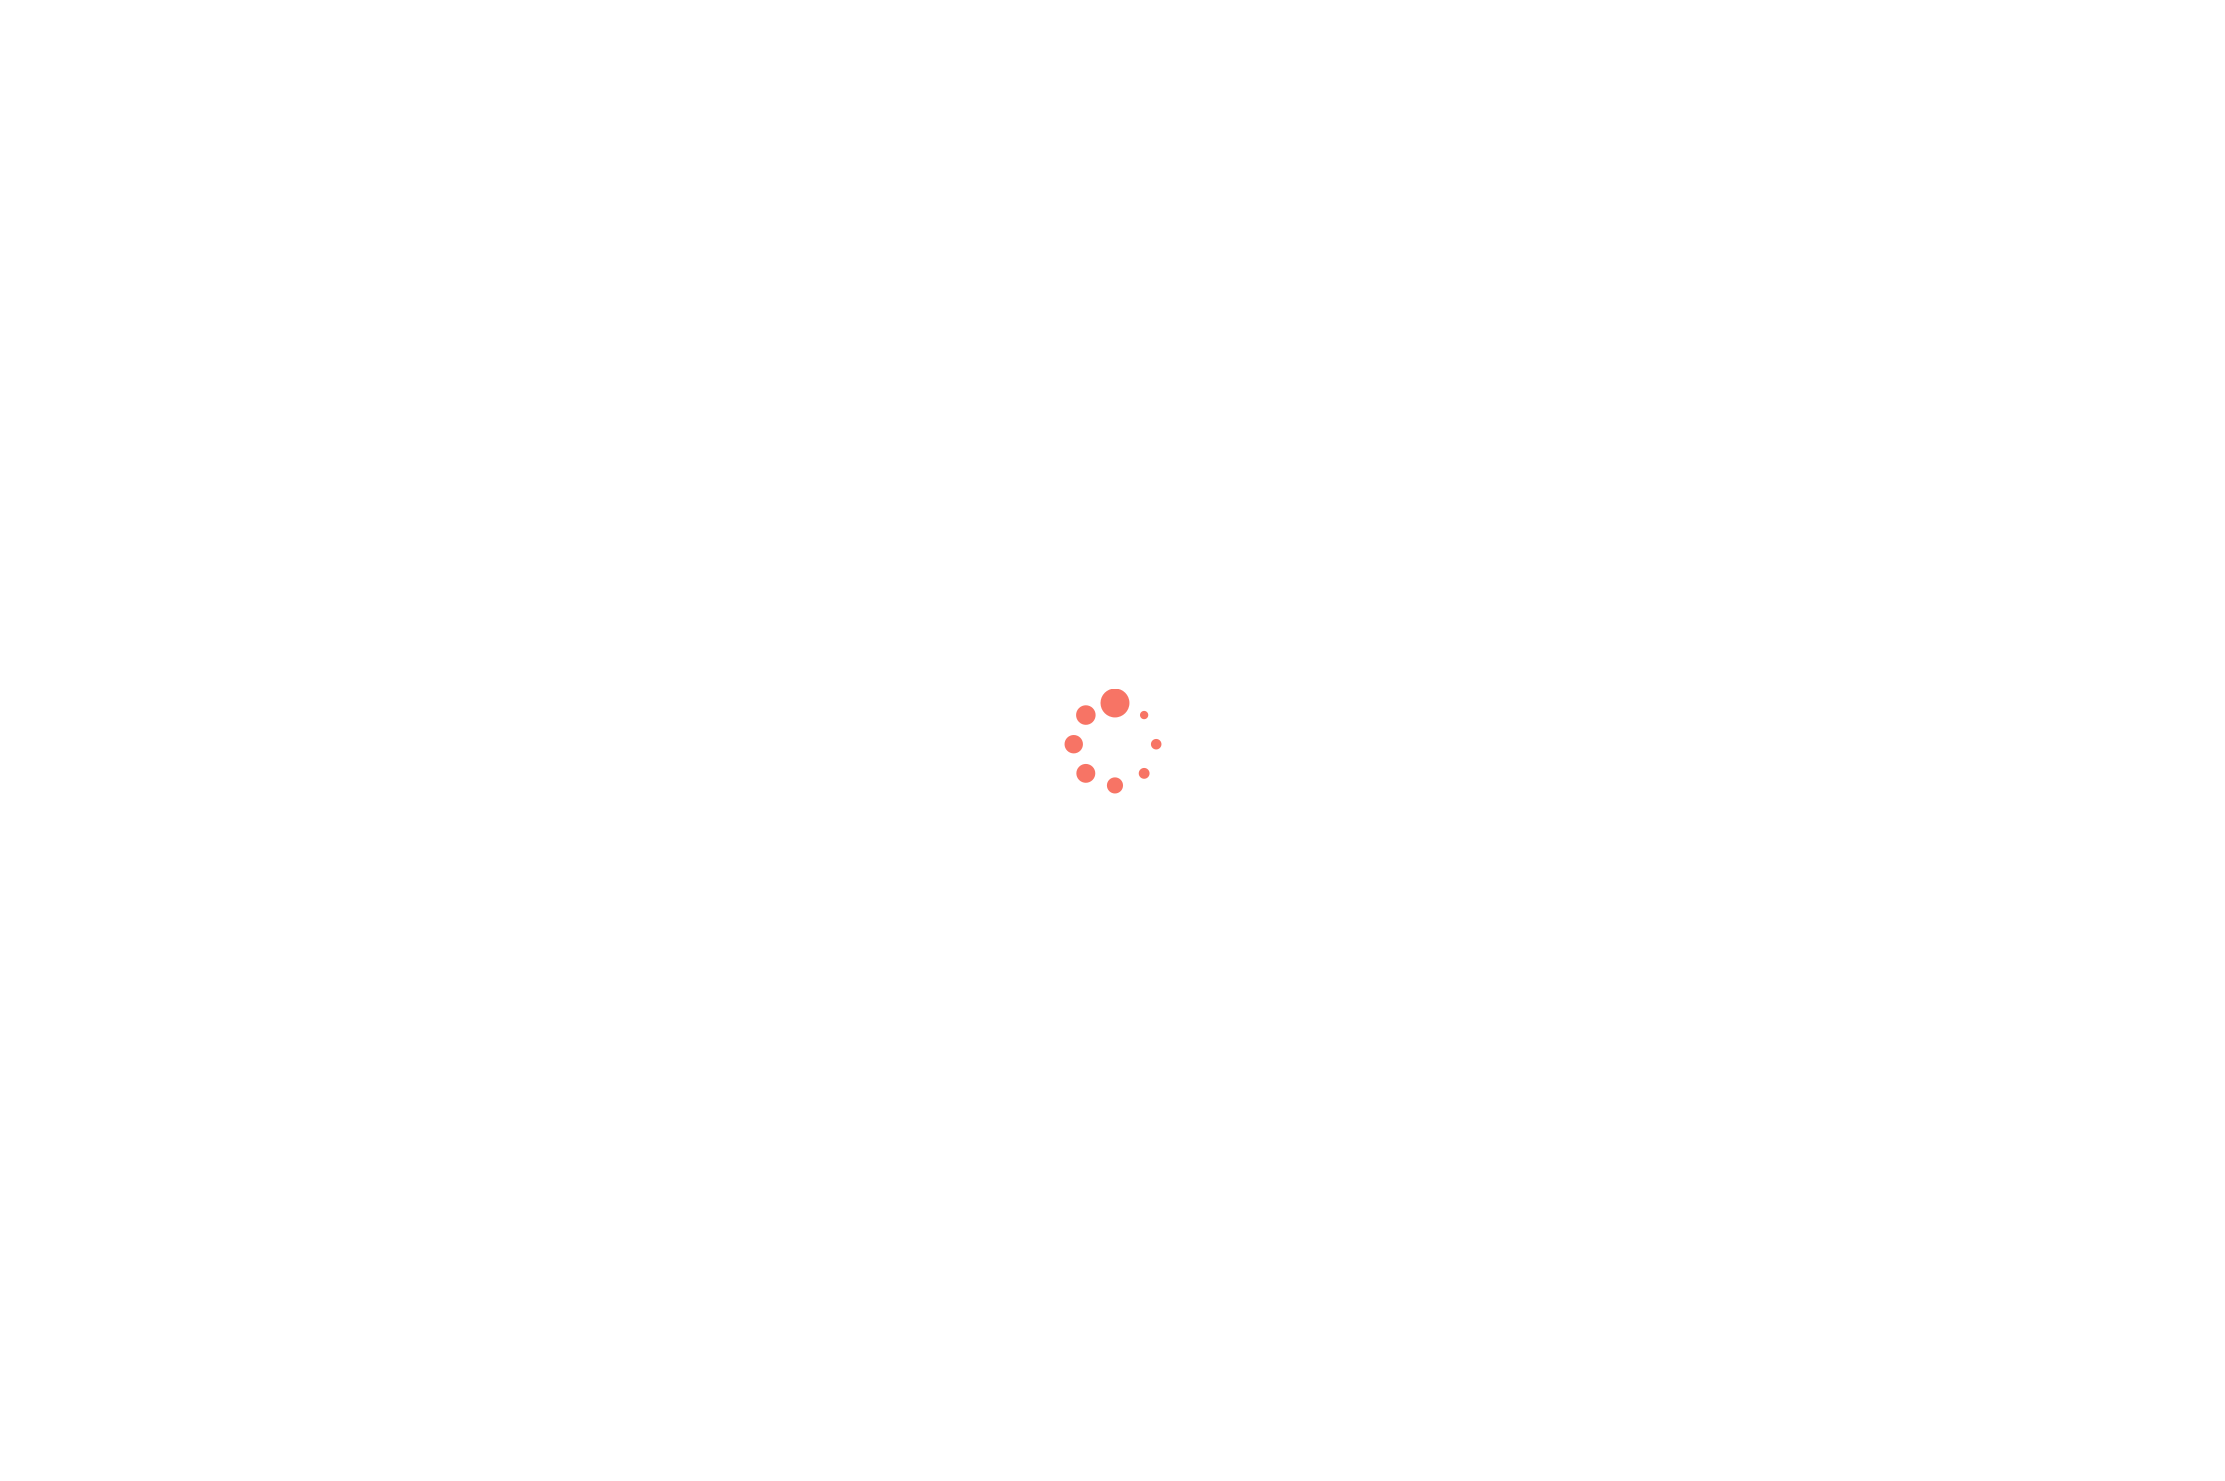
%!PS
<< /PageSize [2225 1481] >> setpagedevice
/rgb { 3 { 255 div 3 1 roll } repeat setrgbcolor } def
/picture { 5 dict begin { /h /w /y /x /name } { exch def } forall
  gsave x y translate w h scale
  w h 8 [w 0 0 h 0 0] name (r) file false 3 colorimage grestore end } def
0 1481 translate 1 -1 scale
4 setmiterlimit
255 255 255 rgb
0 0 2225 1481 rectfill
(img_01.rgb) 1064 689 98 105 picture
showpage
